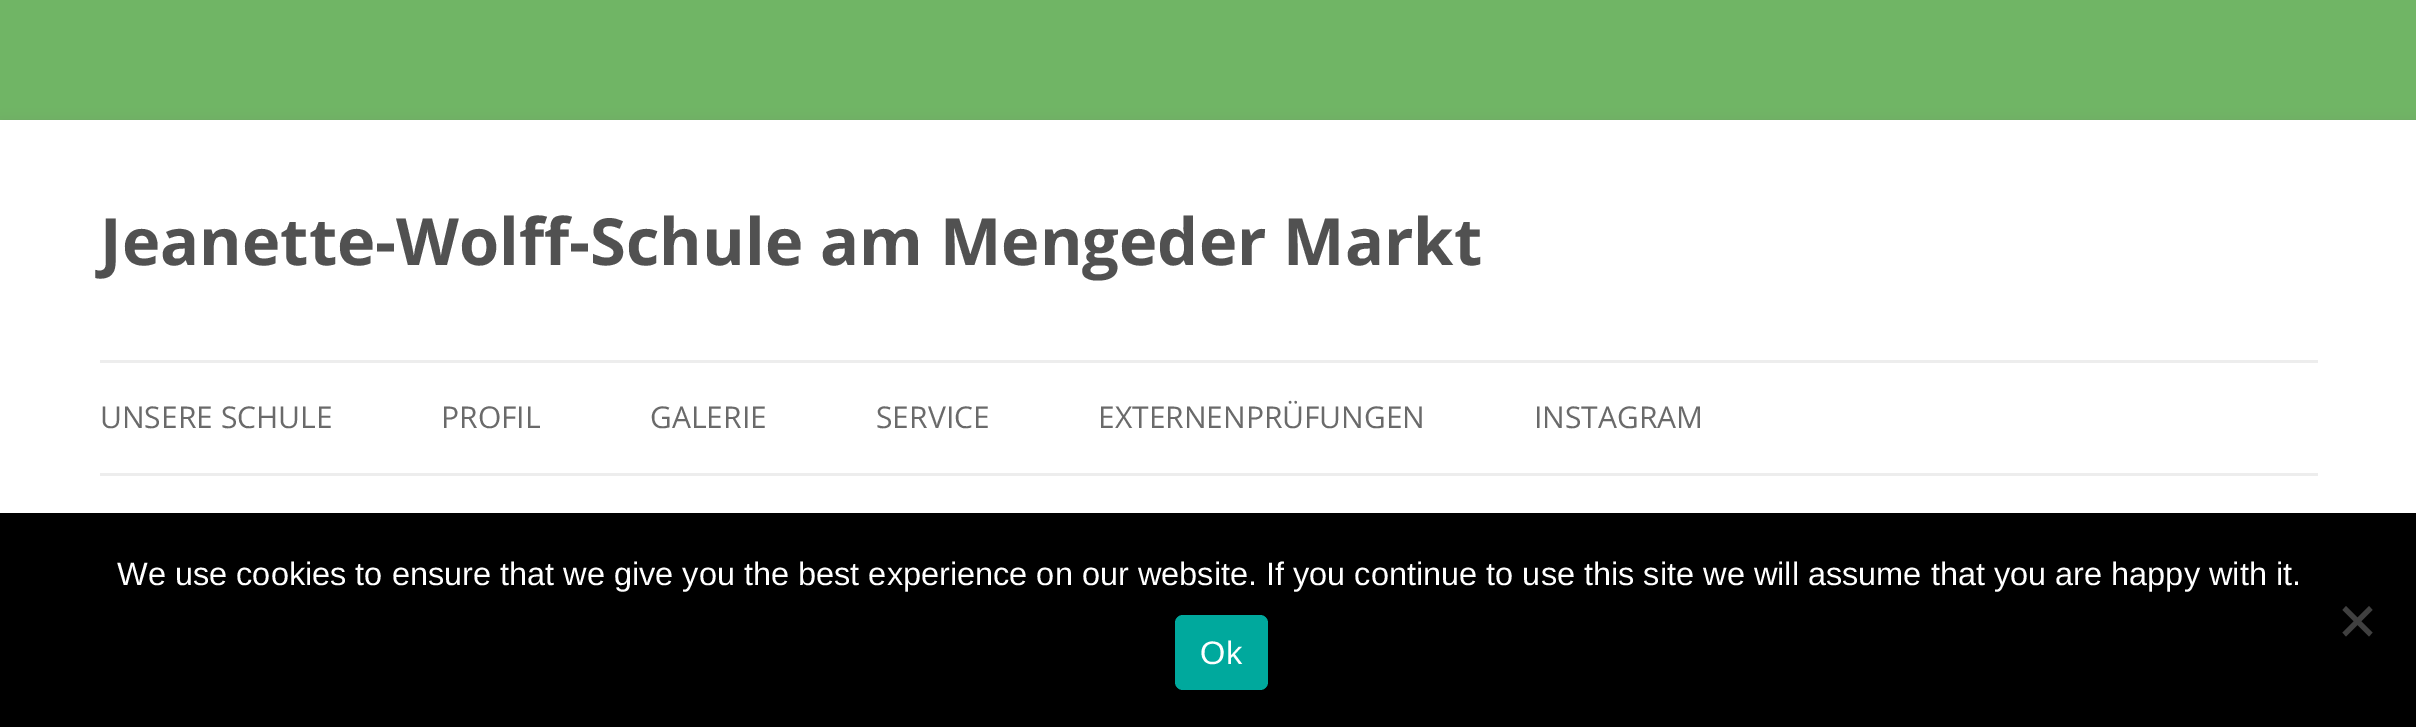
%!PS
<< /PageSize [2416 727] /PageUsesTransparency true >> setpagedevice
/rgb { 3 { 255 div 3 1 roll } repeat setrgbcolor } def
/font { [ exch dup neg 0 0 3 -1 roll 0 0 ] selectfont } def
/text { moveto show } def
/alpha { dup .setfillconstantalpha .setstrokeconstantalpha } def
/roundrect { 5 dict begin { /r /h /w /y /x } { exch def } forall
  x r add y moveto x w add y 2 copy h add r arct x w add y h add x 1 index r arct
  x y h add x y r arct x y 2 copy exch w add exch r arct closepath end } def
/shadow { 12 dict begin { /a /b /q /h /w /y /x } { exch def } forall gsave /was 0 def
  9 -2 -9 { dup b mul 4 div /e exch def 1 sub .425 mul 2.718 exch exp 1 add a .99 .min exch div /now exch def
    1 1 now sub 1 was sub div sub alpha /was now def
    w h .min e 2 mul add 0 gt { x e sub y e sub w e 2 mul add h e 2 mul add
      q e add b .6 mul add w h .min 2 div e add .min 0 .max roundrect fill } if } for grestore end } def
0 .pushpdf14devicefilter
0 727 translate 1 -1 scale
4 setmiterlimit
112 181 101 rgb
0 0 2416 727 rectfill
100 100 100 rgb
0 125 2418 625 0 7.5 0.3 shadow
255 255 255 rgb
0 120 2416 393 rectfill
237 237 237 rgb
100 360 2218 3 rectfill
100 473 2218 3 rectfill
0 0 0 rgb
0 513 2416 214 rectfill
64 64 64 rgb
2369 606 moveto 3.5 4 rlineto -26.5 26.5 rlineto -3.5 -4 rlineto closepath fill
2342.5 610 moveto 3.5 -4 rlineto 26.5 26.5 rlineto -3.5 4 rlineto closepath fill
0 169 157 rgb
1175 615 93 75 8 roundrect fill
/OpenSans-Bold 65 font
81 81 81 rgb
(Jeanette-Wolff-Schule am Mengeder Markt) 100 265 text
/OpenSans-Regular 30 font
106 106 106 rgb
(UNSERE SCHULE) 100 428 text
(PROFIL) 441 428 text
(GALERIE) 650 428 text
(SERVICE) 876 428 text
(EXTERNENPRÜFUNGEN) 1098 428 text
(INSTAGRAM) 1534 428 text
/LiberationSans-Regular 32.5 font
255 255 255 rgb
(We use cookies to ensure that we give you the best experience on our website. If you continue to use this site we will assume that you are happy with it.) 117 585 text
1200 664 moveto 1 0 (Ok) ashow
.poppdf14devicefilter showpage
